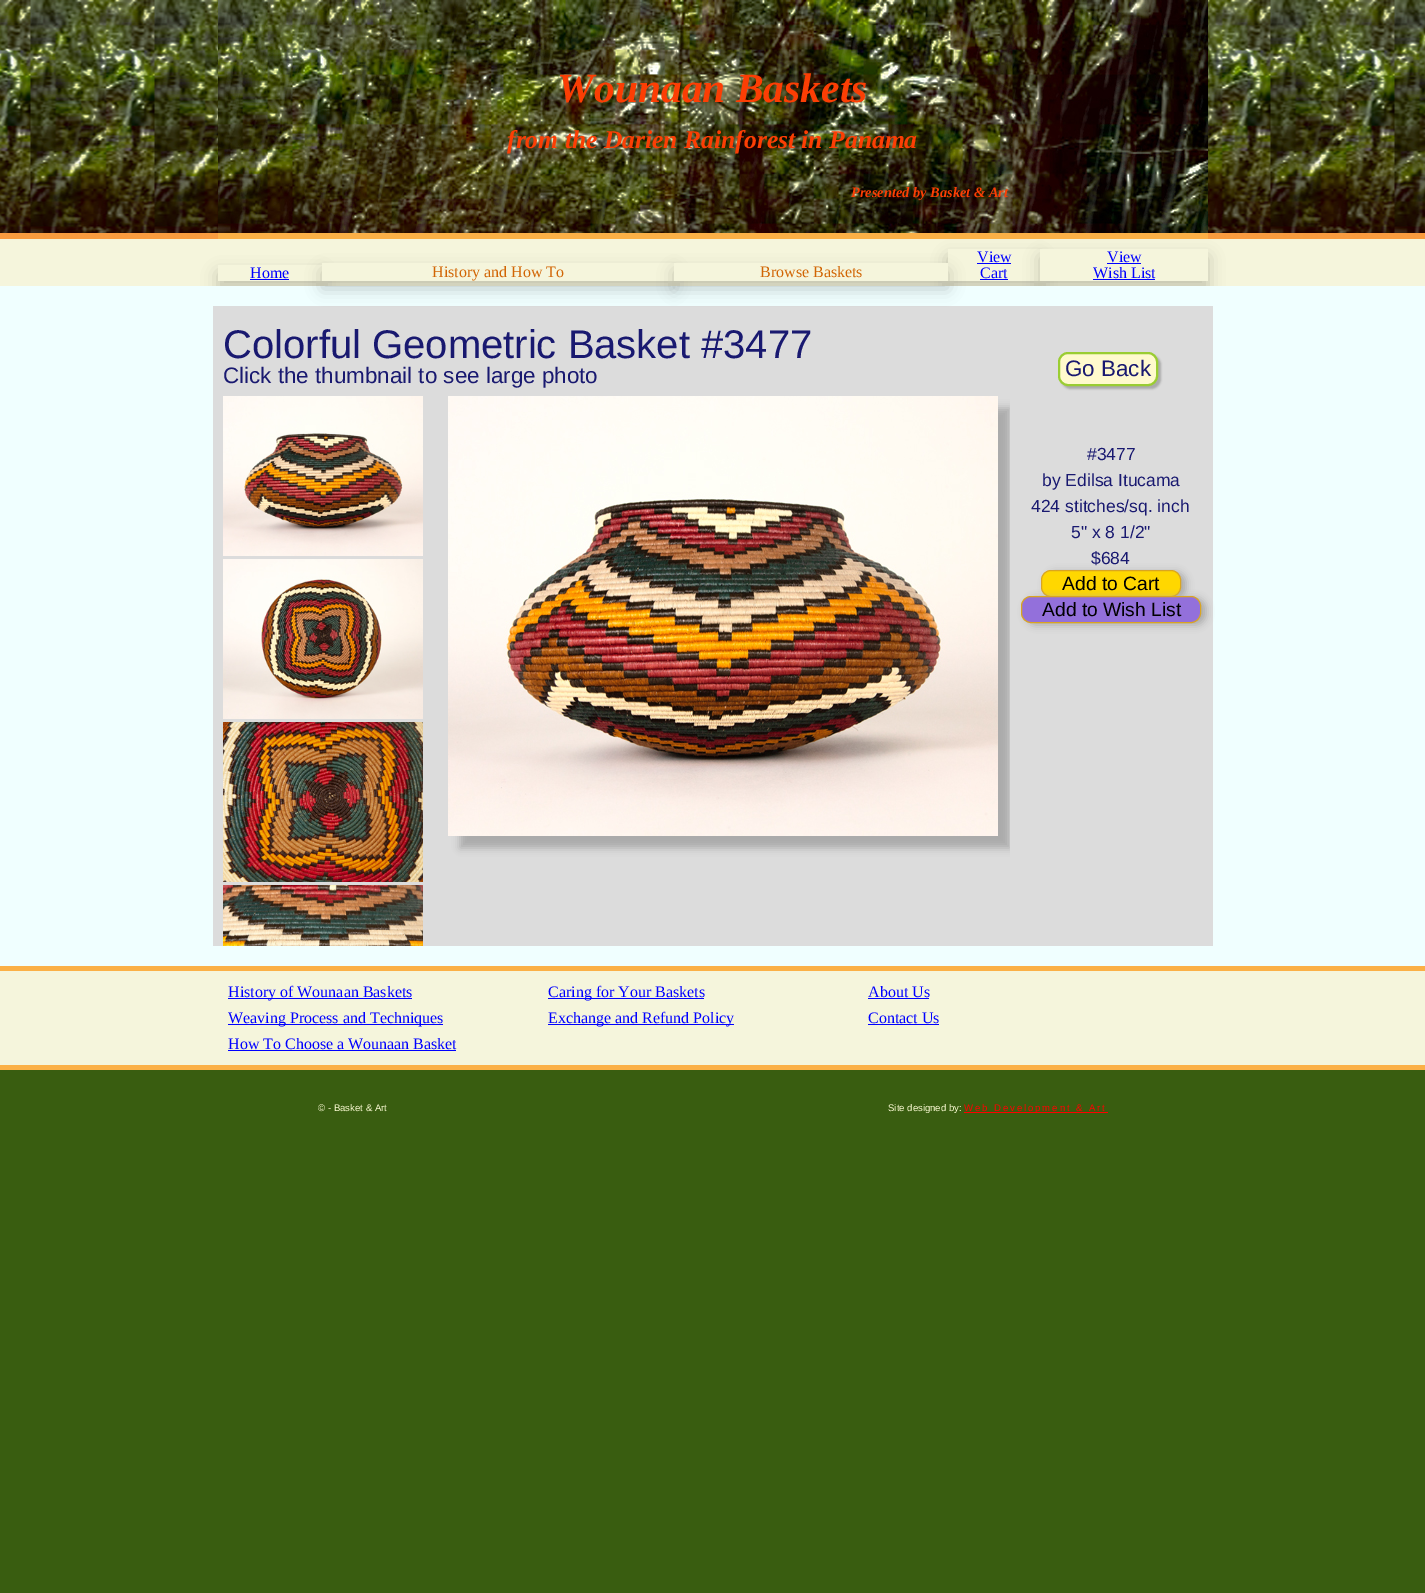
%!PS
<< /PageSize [1425 1593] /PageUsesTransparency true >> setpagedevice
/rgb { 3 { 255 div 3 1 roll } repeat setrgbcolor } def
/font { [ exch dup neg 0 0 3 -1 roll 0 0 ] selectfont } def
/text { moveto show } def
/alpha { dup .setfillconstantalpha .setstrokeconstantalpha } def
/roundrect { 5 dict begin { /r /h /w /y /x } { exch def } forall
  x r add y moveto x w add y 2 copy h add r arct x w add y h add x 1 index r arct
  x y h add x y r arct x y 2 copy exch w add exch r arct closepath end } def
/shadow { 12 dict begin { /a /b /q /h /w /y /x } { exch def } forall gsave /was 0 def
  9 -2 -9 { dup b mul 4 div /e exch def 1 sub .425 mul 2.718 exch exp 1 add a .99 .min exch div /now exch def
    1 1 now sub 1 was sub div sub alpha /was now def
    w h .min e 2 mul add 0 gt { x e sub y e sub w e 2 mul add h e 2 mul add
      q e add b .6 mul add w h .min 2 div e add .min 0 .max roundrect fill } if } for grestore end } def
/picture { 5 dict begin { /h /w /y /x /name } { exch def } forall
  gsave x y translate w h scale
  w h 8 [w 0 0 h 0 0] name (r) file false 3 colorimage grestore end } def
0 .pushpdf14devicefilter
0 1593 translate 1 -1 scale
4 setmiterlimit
57 93 16 rgb
0 0 1425 1593 rectfill
(img_01.rgb) 0 0 1425 239 picture
251 176 70 rgb
218 233 990 6 rectfill
(img_02.rgb) 218 0 990 233 picture
245 245 220 rgb
0 239 1425 47 rectfill
gsave
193 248 moveto 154 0 rlineto 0 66 rlineto -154 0 rlineto closepath 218 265 moveto 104 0 rlineto 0 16 rlineto -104 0 rlineto closepath eoclip newpath
0 0 0 rgb
218 273 104 16 0 8 0.2 shadow
grestore
0 0 255 rgb
250 279 39 1 rectfill
gsave
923 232 moveto 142 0 rlineto 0 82 rlineto -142 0 rlineto closepath 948 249 moveto 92 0 rlineto 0 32 rlineto -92 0 rlineto closepath eoclip newpath
0 0 0 rgb
948 257 92 32 0 8 0.2 shadow
grestore
0 0 0 rgb
1040 257 168 32 0 8 0.2 shadow
240 255 255 rgb
0 286 1425 680 rectfill
220 220 220 rgb
213 306 1000 90 rectfill
0 0 0 rgb
322 271 352 18 0 8 0.2 shadow
245 245 220 rgb
322 263 352 18 rectfill
0 0 0 rgb
674 271 274 18 0 8 0.2 shadow
245 245 220 rgb
674 263 274 18 rectfill
0 0 255 rgb
977 263 34 1 rectfill
980 279 28 1 rectfill
245 245 220 rgb
1040 249 168 32 rectfill
0 0 255 rgb
1107 263 34 1 rectfill
1093 279 62 1 rectfill
169 169 169 rgb
1061 355 100 34 10 1 1 shadow
255 250 205 rgb
1059 353 98 32 9 roundrect gsave fill grestore
154 205 50 rgb
2 setlinewidth
stroke
220 220 220 rgb
213 396 797 550 rectfill
169 169 169 rgb
460 408 550 440 0 4 1 shadow
(img_03.rgb) 448 396 550 440 picture
(img_04.rgb) 223 396 200 160 picture
(img_05.rgb) 223 559 200 160 picture
(img_06.rgb) 223 722 200 160 picture
(img_07.rgb) 223 885 200 61 picture
220 220 220 rgb
1010 396 203 550 rectfill
169 169 169 rgb
1046 572 140 27 10 4 1 shadow
255 215 0 rgb
1041.5 570.5 139 26 9.5 roundrect gsave fill grestore
218 165 32 rgb
1 setlinewidth
stroke
169 169 169 rgb
1026 598 180 27 10 4 1 shadow
147 112 219 rgb
1021.5 596.5 179 26 9.5 roundrect gsave fill grestore
218 165 32 rgb
stroke
251 176 70 rgb
0 966 1425 5 rectfill
245 245 220 rgb
0 971 1425 94 rectfill
0 0 255 rgb
228 998 184 1 rectfill
548 998 156 1 rectfill
868 998 61 1 rectfill
228 1024 215 1 rectfill
548 1024 186 1 rectfill
868 1024 71 1 rectfill
228 1050 228 1 rectfill
251 176 70 rgb
0 1065 1425 5 rectfill
255 0 0 rgb
964 1112 144 1 rectfill
/LiberationSerif-BoldItalic 41.5 font
252 62 4 rgb
(Wounaan Baskets) 557 102 text
/LiberationSerif-BoldItalic 25.6 font
(from the Darien Rainforest in Panama) 507 148 text
/LiberationSerif-BoldItalic 14.4 font
(Presented by Basket & Art) 851 197 text
/LiberationSerif-Regular 16 font
0 0 255 rgb
(Home) 250 278 text
209 101 4 rgb
(History and How To) 432 277 text
(Browse Baskets) 760 277 text
0 0 255 rgb
(View) 977 262 text
(Cart) 980 278 text
(View) 1107 262 text
(Wish List) 1093 278 text
/LiberationSans-Regular 40 font
25 25 112 rgb
(Colorful Geometric Basket #3477) 223 358 text
/LiberationSans-Regular 22.4 font
(Click the thumbnail to see large photo) 223 383 text
(Go Back) 1065 376 text
/LiberationSans-Regular 17.5 font
(#3477) 1087 460 text
(by Edilsa Itucama) 1042 486 text
(424 stitches/sq. inch) 1031 512 text
(5" x 8 1/2") 1071 538 text
($684) 1091 564 text
/LiberationSans-Regular 19.25 font
0 0 0 rgb
(Add to Cart) 1062 590 text
(Add to Wish List) 1042 616 text
/LiberationSerif-Regular 16 font
0 0 255 rgb
(History of Wounaan Baskets) 228 997 text
(Caring for Your Baskets) 548 997 text
(About Us) 868 997 text
(Weaving Process and Techniques) 228 1023 text
(Exchange and Refund Policy) 548 1023 text
(Contact Us) 868 1023 text
(How To Choose a Wounaan Basket) 228 1049 text
/LiberationSans-Regular 9.6 font
250 250 210 rgb
(© - Basket & Art) 318 1111 text
(Site designed by:) 888 1111 text
255 0 0 rgb
964 1111 moveto 1.9 0 (Web Development & Art) ashow
.poppdf14devicefilter showpage
